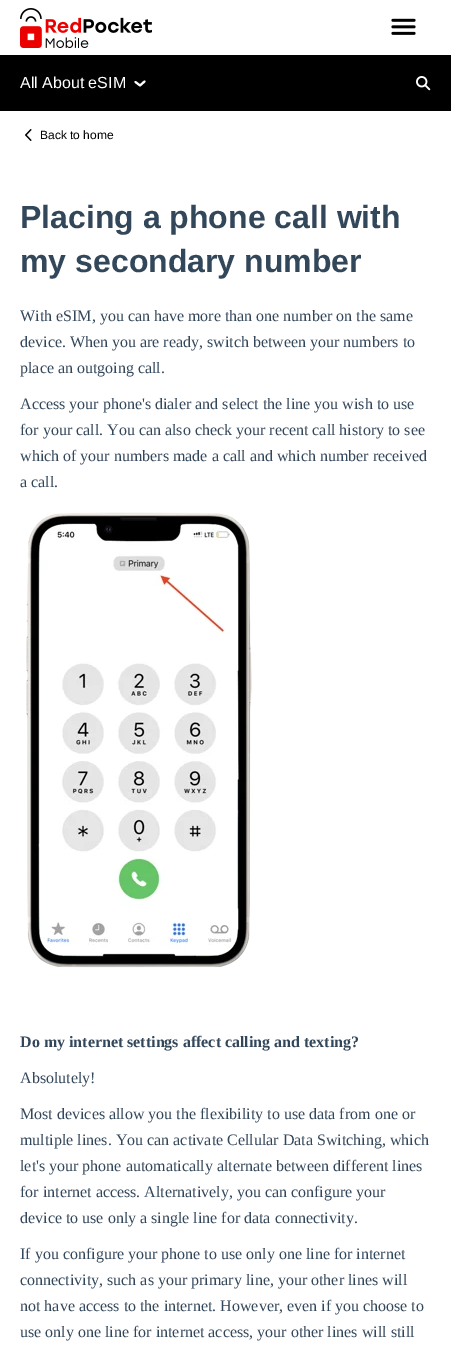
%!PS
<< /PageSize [451 1355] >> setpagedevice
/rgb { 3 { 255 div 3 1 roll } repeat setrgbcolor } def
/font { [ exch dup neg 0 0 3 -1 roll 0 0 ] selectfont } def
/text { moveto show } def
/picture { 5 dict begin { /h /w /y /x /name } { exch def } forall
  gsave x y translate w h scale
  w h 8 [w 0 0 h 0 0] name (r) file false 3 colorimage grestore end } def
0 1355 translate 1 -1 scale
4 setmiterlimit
255 255 255 rgb
0 0 451 1355 rectfill
(img_01.rgb) 20 8 132 40 picture
(img_02.rgb) 391 18 25 17 picture
0 0 0 rgb
0 55 451 56 rectfill
255 255 255 rgb
2 setlinewidth
1 setlinecap
1 setlinejoin
144.5 81.5 moveto -4.5 4 rlineto -4.5 -3.5 rlineto stroke
(img_03.rgb) 416 76 15 15 picture
(img_04.rgb) 25 129 7 12 picture
(img_05.rgb) 26 512 226 456 picture
/LiberationSans-Regular 16 font
(All About eSIM) 20 88 text
/LiberationSans-Regular 12 font
0 0 0 rgb
(Back to home) 40 139 text
/LiberationSans-Bold 32 font
51 71 91 rgb
(Placing a phone call with) 20 228 text
(my secondary number) 20 272 text
/LiberationSerif-Regular 16 font
(With eSIM, you can have more than one number on the same) 20 321 text
(device. When you are ready, switch between your numbers to) 20 347 text
(place an outgoing call.) 20 373 text
(Access your phone's dialer and select the line you wish to use) 20 409 text
(for your call. You can also check your recent call history to see) 20 435 text
(which of your numbers made a call and which number received) 20 461 text
(a call.) 20 487 text
/LiberationSerif-Bold 16 font
(Do my internet settings affect calling and texting?) 20 1047 text
/LiberationSerif-Regular 16 font
(Absolutely!) 20 1083 text
(Most devices allow you the flexibility to use data from one or) 20 1119 text
(multiple lines. You can activate Cellular Data Switching, which) 20 1145 text
(let's your phone automatically alternate between different lines) 20 1171 text
(for internet access. Alternatively, you can configure your) 20 1197 text
(device to use only a single line for data connectivity.) 20 1223 text
(If you configure your phone to use only one line for internet) 20 1259 text
(connectivity, such as your primary line, your other lines will) 20 1285 text
(not have access to the internet. However, even if you choose to) 20 1311 text
(use only one line for internet access, your other lines will still) 20 1337 text
showpage
